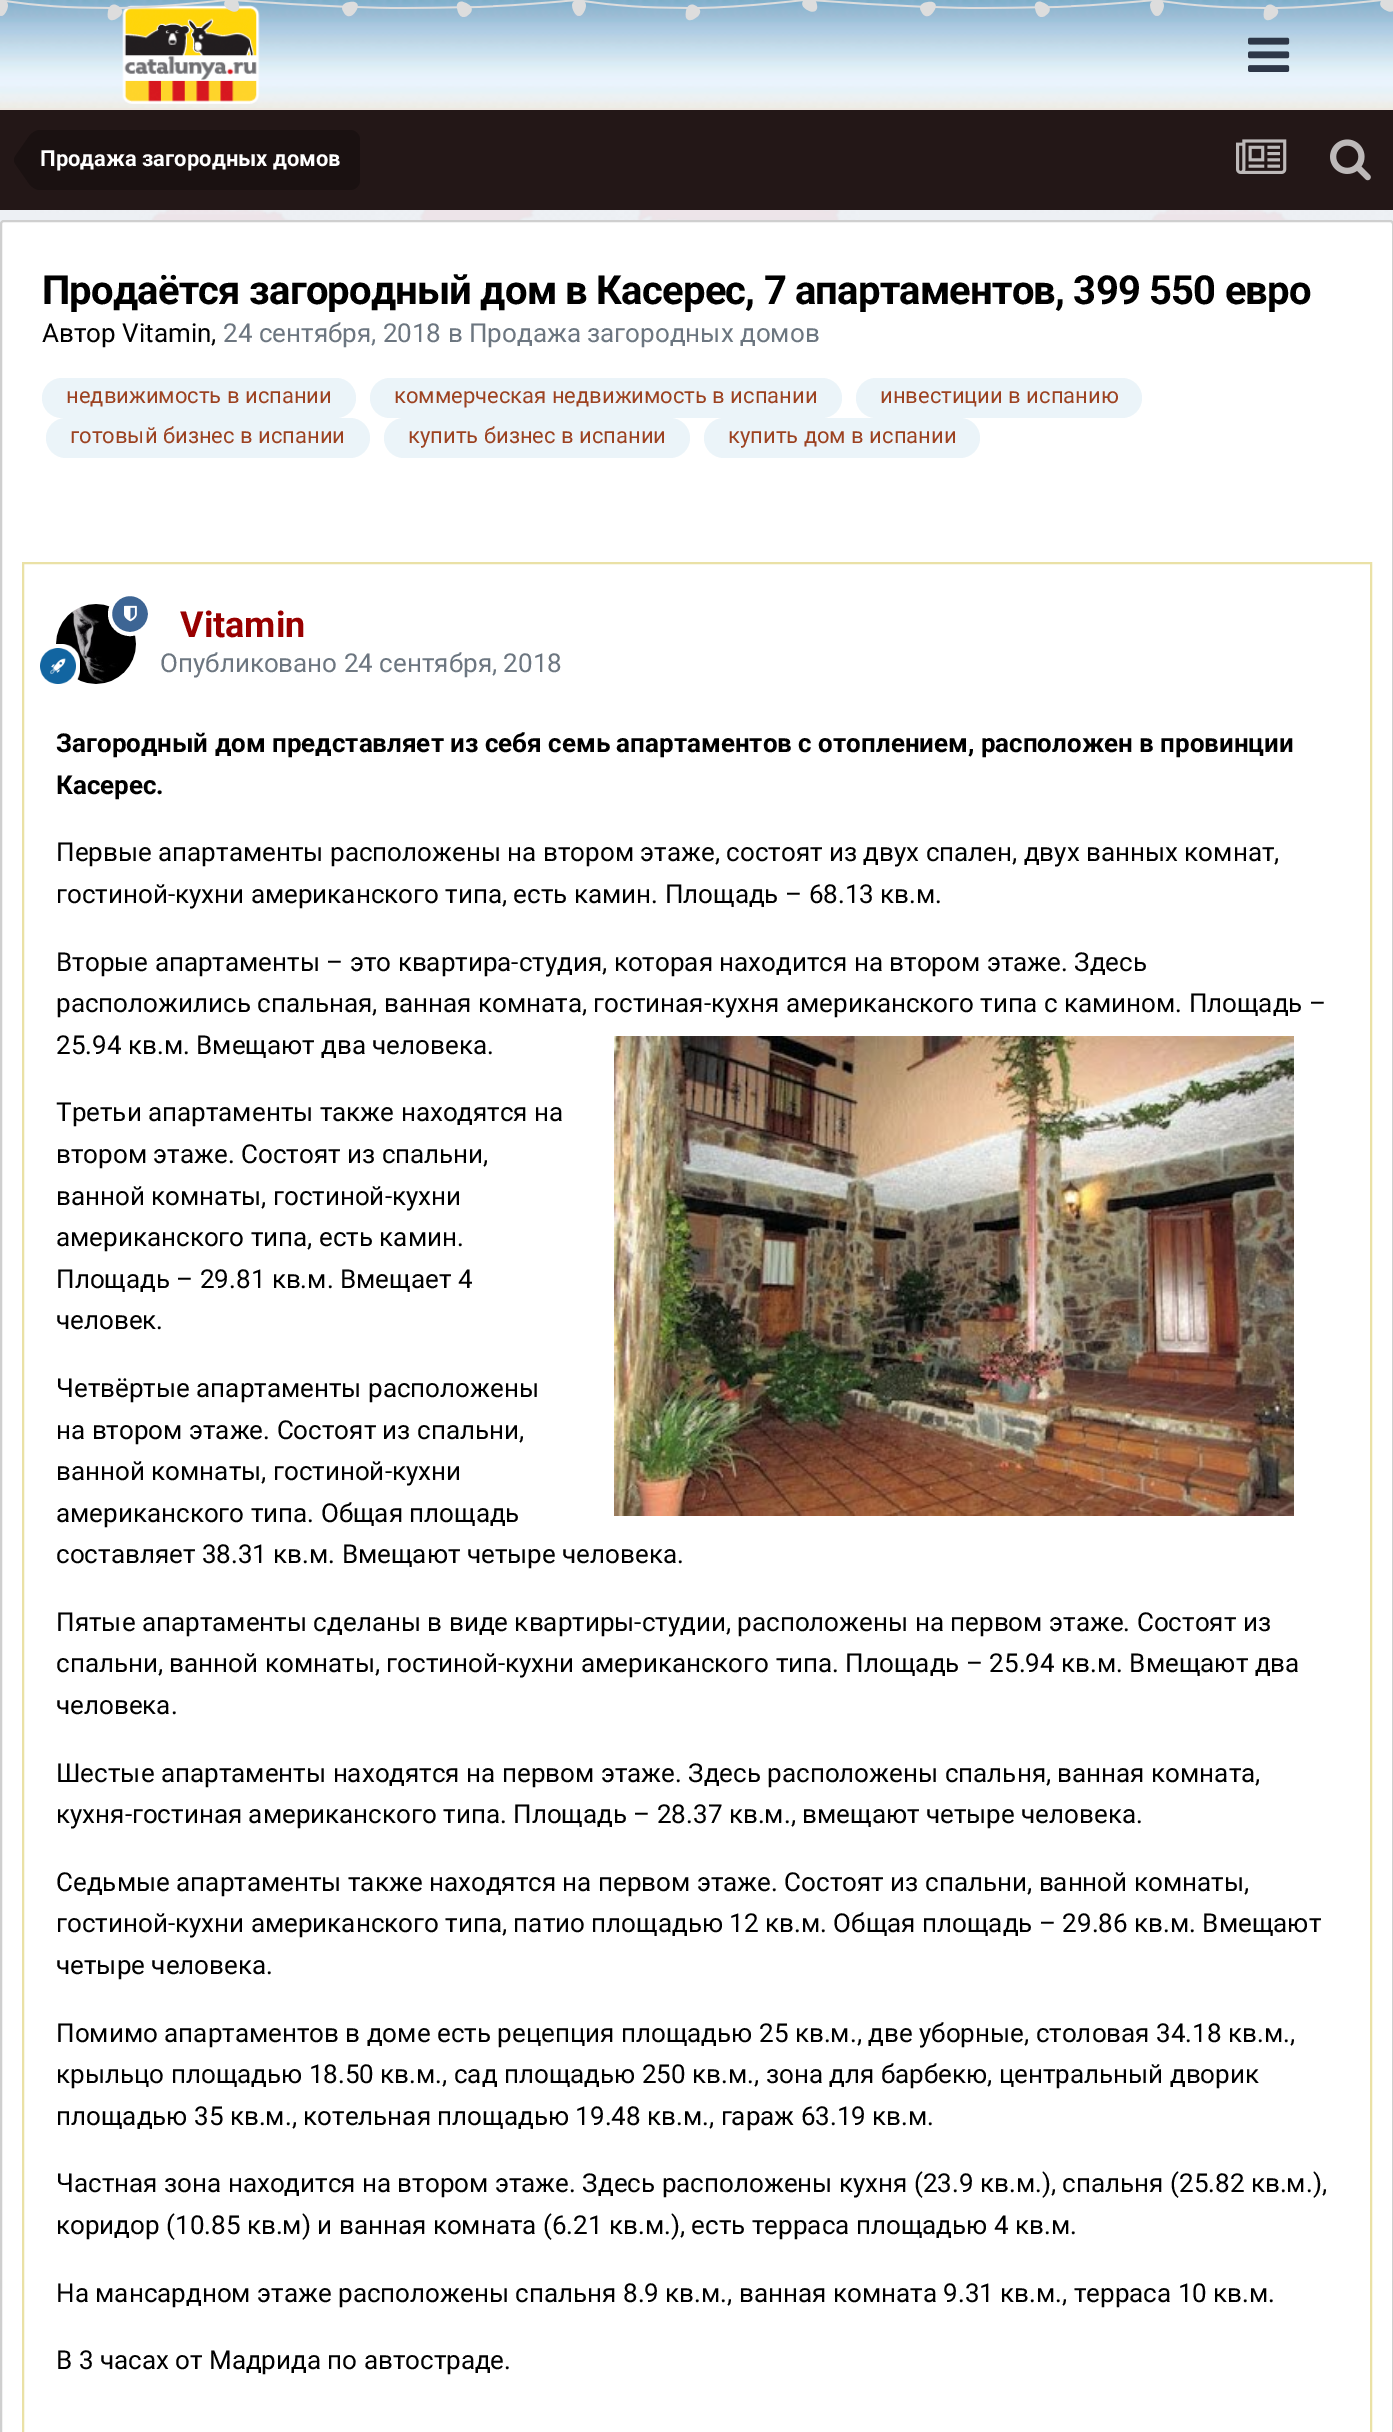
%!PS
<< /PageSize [1393 2432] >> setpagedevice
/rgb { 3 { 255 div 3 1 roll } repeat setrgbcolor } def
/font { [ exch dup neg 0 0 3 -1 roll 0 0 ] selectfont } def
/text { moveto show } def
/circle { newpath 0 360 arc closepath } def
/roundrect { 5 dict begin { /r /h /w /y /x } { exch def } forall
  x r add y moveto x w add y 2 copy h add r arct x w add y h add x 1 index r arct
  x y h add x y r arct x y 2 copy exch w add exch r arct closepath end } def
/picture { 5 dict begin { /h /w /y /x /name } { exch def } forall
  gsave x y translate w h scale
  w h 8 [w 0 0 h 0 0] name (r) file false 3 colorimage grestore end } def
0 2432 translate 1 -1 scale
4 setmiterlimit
237 240 244 rgb
0 0 1393 2432 rectfill
(img_01.rgb) 35 210 1358 12 picture
238 232 226 rgb
0 108 1393 2 rectfill
(img_02.rgb) 0 0 1393 108 picture
(img_03.rgb) 122 5 138 99 picture
(img_04.rgb) 1248 37 42 35 picture
(img_05.rgb) 0 0 110 16 picture
(img_06.rgb) 107 0 119 21 picture
(img_07.rgb) 224 0 119 12 picture
(img_08.rgb) 342 1 116 16 picture
(img_09.rgb) 456 0 120 17 picture
(img_10.rgb) 572 0 116 16 picture
(img_11.rgb) 685 0 119 21 picture
(img_12.rgb) 802 0 119 12 picture
(img_13.rgb) 920 1 116 16 picture
(img_14.rgb) 1034 0 120 17 picture
(img_15.rgb) 1150 0 116 16 picture
(img_16.rgb) 1263 0 119 21 picture
(img_17.rgb) 1380 0 13 12 picture
35 23 23 rgb
0 110 1393 100 rectfill
26 17 17 rgb
40 130 moveto 310 0 rlineto 5.5 0 10 4.5 10 10 rcurveto 0 40 rlineto 0 5.5 -4.5 10 -10 10 rcurveto -310 0 rlineto closepath fill
40 160 moveto 0 30 rlineto -3.5 0 -7 -2 -10 -5 rcurveto -15 -21.5 rlineto -0.5 -1 -1 -2 -1 -3.5 rcurveto closepath 40 160 moveto -26 0 rlineto 0 -1.5 0.5 -2.5 1 -3.5 rcurveto 15 -21.5 rlineto 3 -3 6.5 -5 10 -5 rcurveto closepath fill
(img_18.rgb) 1236 139 51 35 picture
(img_19.rgb) 1330 139 41 42 picture
255 255 255 rgb
1 221 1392 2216 3 roundrect gsave fill grestore
207 207 207 rgb
2 setlinewidth
stroke
235 244 249 rgb
42 378 314 40 20 roundrect fill
370 378 472 40 20 roundrect fill
856 378 286 40 20 roundrect fill
46 418 324 40 20 roundrect fill
384 418 306 40 20 roundrect fill
704 418 276 40 20 roundrect fill
234 225 166 rgb
23 563 1348 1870 rectstroke
(img_21.rgb) 56 604 80 80 picture
61 101 148 rgb
130 614 20 circle gsave fill grestore
255 255 255 rgb
4 setlinewidth
stroke
(img_20.rgb) 124 605 13 17 picture
(img_22.rgb) 40 644 40 40 picture
(img_23.rgb) 614 1036 680 480 picture
/Roboto-Bold 22 font
(Продажа загородных домов) 40 166 text
/Roboto-Bold 40 font
0 0 0 rgb
42 304 moveto -0.8 0 (Продаётся загородный дом в Касерес, 7 апартаментов, 399 550 евро) ashow
/Roboto-Regular 26 font
(Автор Vitamin,) 42 342 text
108 118 128 rgb
(24 сентября, 2018 в Продажа загородных домов) 223 342 text
/Roboto-Regular 22 font
156 66 33 rgb
(недвижимость в испании) 66 403 text
(коммерческая недвижимость в испании) 394 403 text
(инвестиции в испанию) 880 403 text
(готовый бизнес в испании) 70 443 text
(купить бизнес в испании) 408 443 text
(купить дом в испании) 728 443 text
/Roboto-Bold 36 font
153 0 0 rgb
(Vitamin) 180 637 text
/Roboto-Regular 26 font
108 118 128 rgb
(Опубликовано 24 сентября, 2018) 160 672 text
/Roboto-Bold 26 font
0 0 0 rgb
(Загородный дом представляет из себя семь апартаментов с отоплением, расположен в провинции) 56 752 text
(Касерес.) 56 794 text
/Roboto-Regular 26 font
(Первые апартаменты расположены на втором этаже, состоят из двух спален, двух ванных комнат,) 56 861 text
(гостиной-кухни американского типа, есть камин. Площадь – 68.13 кв.м.) 56 903 text
(Вторые апартаменты – это квартира-студия, которая находится на втором этаже. Здесь) 56 971 text
(расположились спальная, ванная комната, гостиная-кухня американского типа с камином. Площадь –) 56 1012 text
(25.94 кв.м. Вмещают два человека.) 56 1054 text
(Третьи апартаменты также находятся на) 56 1121 text
(втором этаже. Состоят из спальни,) 56 1163 text
(ванной комнаты, гостиной-кухни) 56 1205 text
(американского типа, есть камин.) 56 1246 text
(Площадь – 29.81 кв.м. Вмещает 4) 56 1288 text
(человек.) 56 1329 text
(Четвёртые апартаменты расположены) 56 1397 text
(на втором этаже. Состоят из спальни,) 56 1439 text
(ванной комнаты, гостиной-кухни) 56 1480 text
(американского типа. Общая площадь) 56 1522 text
(составляет 38.31 кв.м. Вмещают четыре человека.) 56 1563 text
(Пятые апартаменты сделаны в виде квартиры-студии, расположены на первом этаже. Состоят из) 56 1631 text
(спальни, ванной комнаты, гостиной-кухни американского типа. Площадь – 25.94 кв.м. Вмещают два) 56 1672 text
(человека.) 56 1714 text
(Шестые апартаменты находятся на первом этаже. Здесь расположены спальня, ванная комната,) 56 1782 text
(кухня-гостиная американского типа. Площадь – 28.37 кв.м., вмещают четыре человека.) 56 1823 text
(Седьмые апартаменты также находятся на первом этаже. Состоят из спальни, ванной комнаты,) 56 1891 text
(гостиной-кухни американского типа, патио площадью 12 кв.м. Общая площадь – 29.86 кв.м. Вмещают) 56 1932 text
(четыре человека.) 56 1974 text
(Помимо апартаментов в доме есть рецепция площадью 25 кв.м., две уборные, столовая 34.18 кв.м.,) 56 2042 text
(крыльцо площадью 18.50 кв.м., сад площадью 250 кв.м., зона для барбекю, центральный дворик) 56 2083 text
(площадью 35 кв.м., котельная площадью 19.48 кв.м., гараж 63.19 кв.м.) 56 2125 text
(Частная зона находится на втором этаже. Здесь расположены кухня \(23.9 кв.м.\), спальня \(25.82 кв.м.\),) 56 2192 text
(коридор \(10.85 кв.м\) и ванная комната \(6.21 кв.м.\), есть терраса площадью 4 кв.м.) 56 2234 text
(На мансардном этаже расположены спальня 8.9 кв.м., ванная комната 9.31 кв.м., терраса 10 кв.м.) 56 2302 text
(В 3 часах от Мадрида по автостраде.) 56 2369 text
showpage
